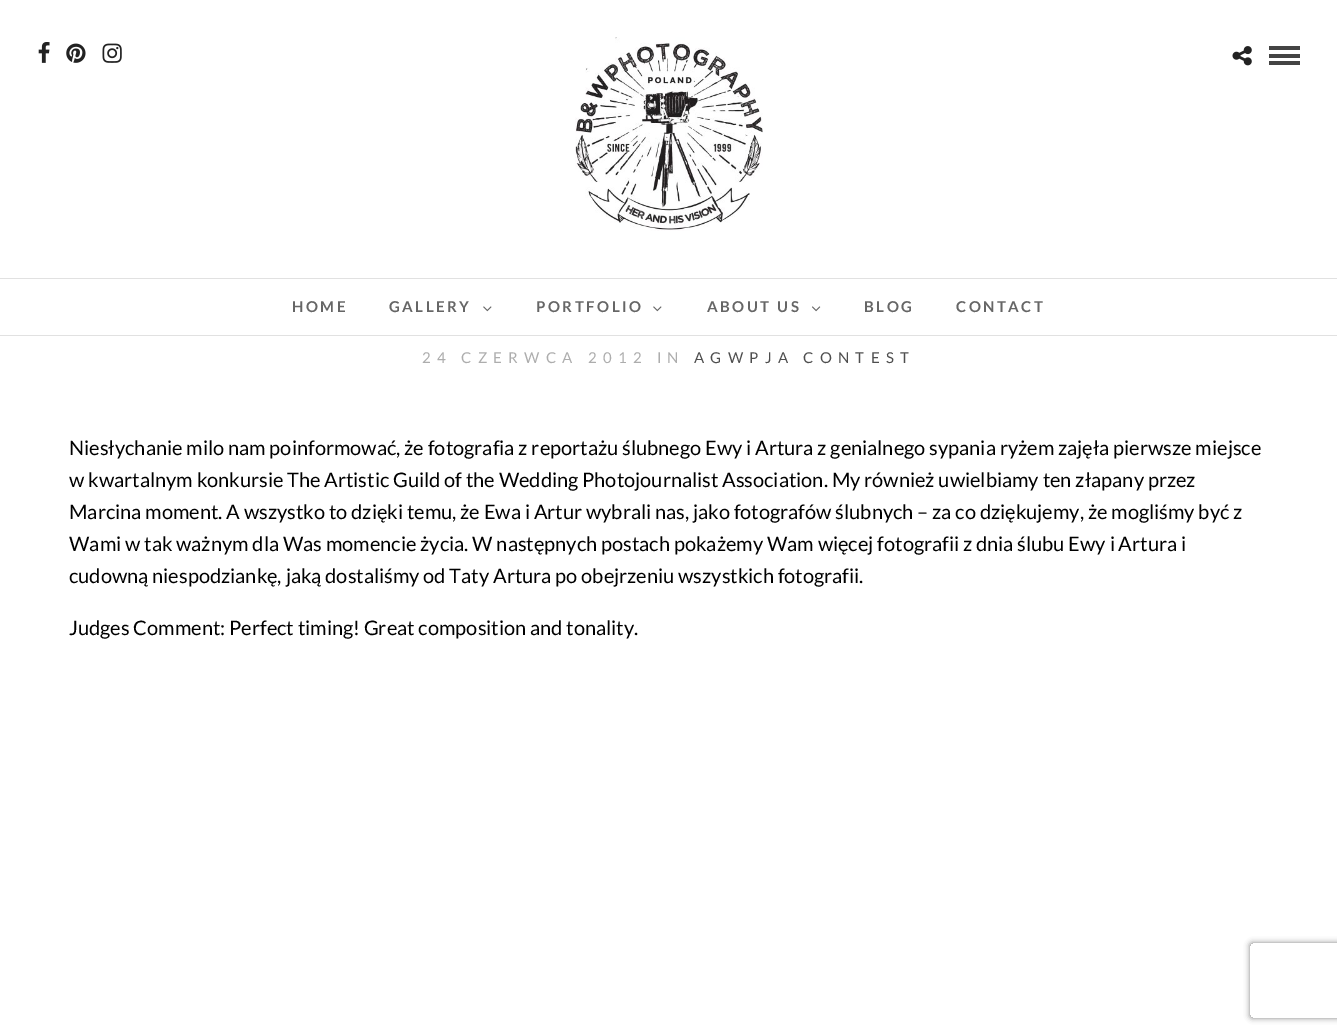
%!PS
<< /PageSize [1337 1034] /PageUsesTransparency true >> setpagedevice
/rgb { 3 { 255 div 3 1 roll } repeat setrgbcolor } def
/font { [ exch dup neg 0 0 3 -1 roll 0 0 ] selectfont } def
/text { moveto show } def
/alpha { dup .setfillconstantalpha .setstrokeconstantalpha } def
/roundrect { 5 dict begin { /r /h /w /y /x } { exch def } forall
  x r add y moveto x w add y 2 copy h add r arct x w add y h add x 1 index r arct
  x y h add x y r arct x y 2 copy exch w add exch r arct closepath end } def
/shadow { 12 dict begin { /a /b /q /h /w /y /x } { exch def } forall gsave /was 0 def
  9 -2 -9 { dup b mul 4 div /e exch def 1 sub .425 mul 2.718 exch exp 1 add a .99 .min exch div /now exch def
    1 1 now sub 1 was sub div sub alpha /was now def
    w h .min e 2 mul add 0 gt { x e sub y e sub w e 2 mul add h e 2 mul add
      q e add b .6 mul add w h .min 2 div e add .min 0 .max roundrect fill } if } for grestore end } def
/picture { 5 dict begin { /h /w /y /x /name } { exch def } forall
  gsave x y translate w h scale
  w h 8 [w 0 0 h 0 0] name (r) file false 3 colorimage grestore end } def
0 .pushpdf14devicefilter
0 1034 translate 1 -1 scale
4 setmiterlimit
255 255 255 rgb
0 0 1337 1034 rectfill
225 225 225 rgb
0 335 1337 1 rectfill
0 278 1337 1 rectfill
(img_01.rgb) 38 42 12 21 picture
(img_02.rgb) 66 43 20 20 picture
(img_03.rgb) 102 43 20 20 picture
(img_04.rgb) 575 37 188 194 picture
(img_05.rgb) 1232 46 20 20 picture
68 68 68 rgb
1269 46 31 4 rectfill
1269 54 31 4 rectfill
1269 61 31 4 rectfill
(img_06.rgb) 483 306 9 6 picture
(img_06.rgb) 653 306 9 6 picture
(img_07.rgb) 812 306 9 6 picture
gsave
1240 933 moveto 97 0 rlineto 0 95 rlineto -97 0 rlineto closepath 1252.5 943 moveto 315 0 rlineto 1.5 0 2.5 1 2.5 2.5 rcurveto 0 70 rlineto 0 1.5 -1 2.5 -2.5 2.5 rcurveto -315 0 rlineto -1.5 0 -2.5 -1 -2.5 -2.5 rcurveto 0 -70 rlineto 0 -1.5 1 -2.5 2.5 -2.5 rcurveto closepath eoclip newpath
128 128 128 rgb
1250 943 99 75 2.5 3 1 shadow
grestore
/Lato-Bold 15 font
102 102 102 rgb
292 312 moveto 2.5 0 (HOME) ashow
389 312 moveto 2.5 0 (GALLERY) ashow
536 312 moveto 2.5 0 (PORTFOLIO) ashow
707 312 moveto 2.5 0 (ABOUT US) ashow
864 312 moveto 2.5 0 (BLOG) ashow
956 312 moveto 2.5 0 (CONTACT) ashow
/Lato-Regular 15 font
173 173 173 rgb
422 363 moveto 6.25 0 (24 CZERWCA 2012 IN) ashow
78 78 78 rgb
694 363 moveto 6.25 0 (AGWPJA CONTEST) ashow
/Lato-Regular 20 font
0 0 0 rgb
(Niesłychanie milo nam poinformować, że fotografia z reportażu ślubnego Ewy i Artura z genialnego sypania ryżem zajęła pierwsze miejsce) 69 455 text
(w kwartalnym konkursie The Artistic Guild of the Wedding Photojournalist Association. My również uwielbiamy ten złapany przez) 69 487 text
(Marcina moment. A wszystko to dzięki temu, że Ewa i Artur wybrali nas, jako fotografów ślubnych – za co dziękujemy, że mogliśmy być z) 69 519 text
(Wami w tak ważnym dla Was momencie życia. W następnych postach pokażemy Wam więcej fotografii z dnia ślubu Ewy i Artura i) 69 551 text
(cudowną niespodziankę, jaką dostaliśmy od Taty Artura po obejrzeniu wszystkich fotografii.) 69 583 text
(Judges Comment: Perfect timing! Great composition and tonality.) 69 635 text
.poppdf14devicefilter showpage
